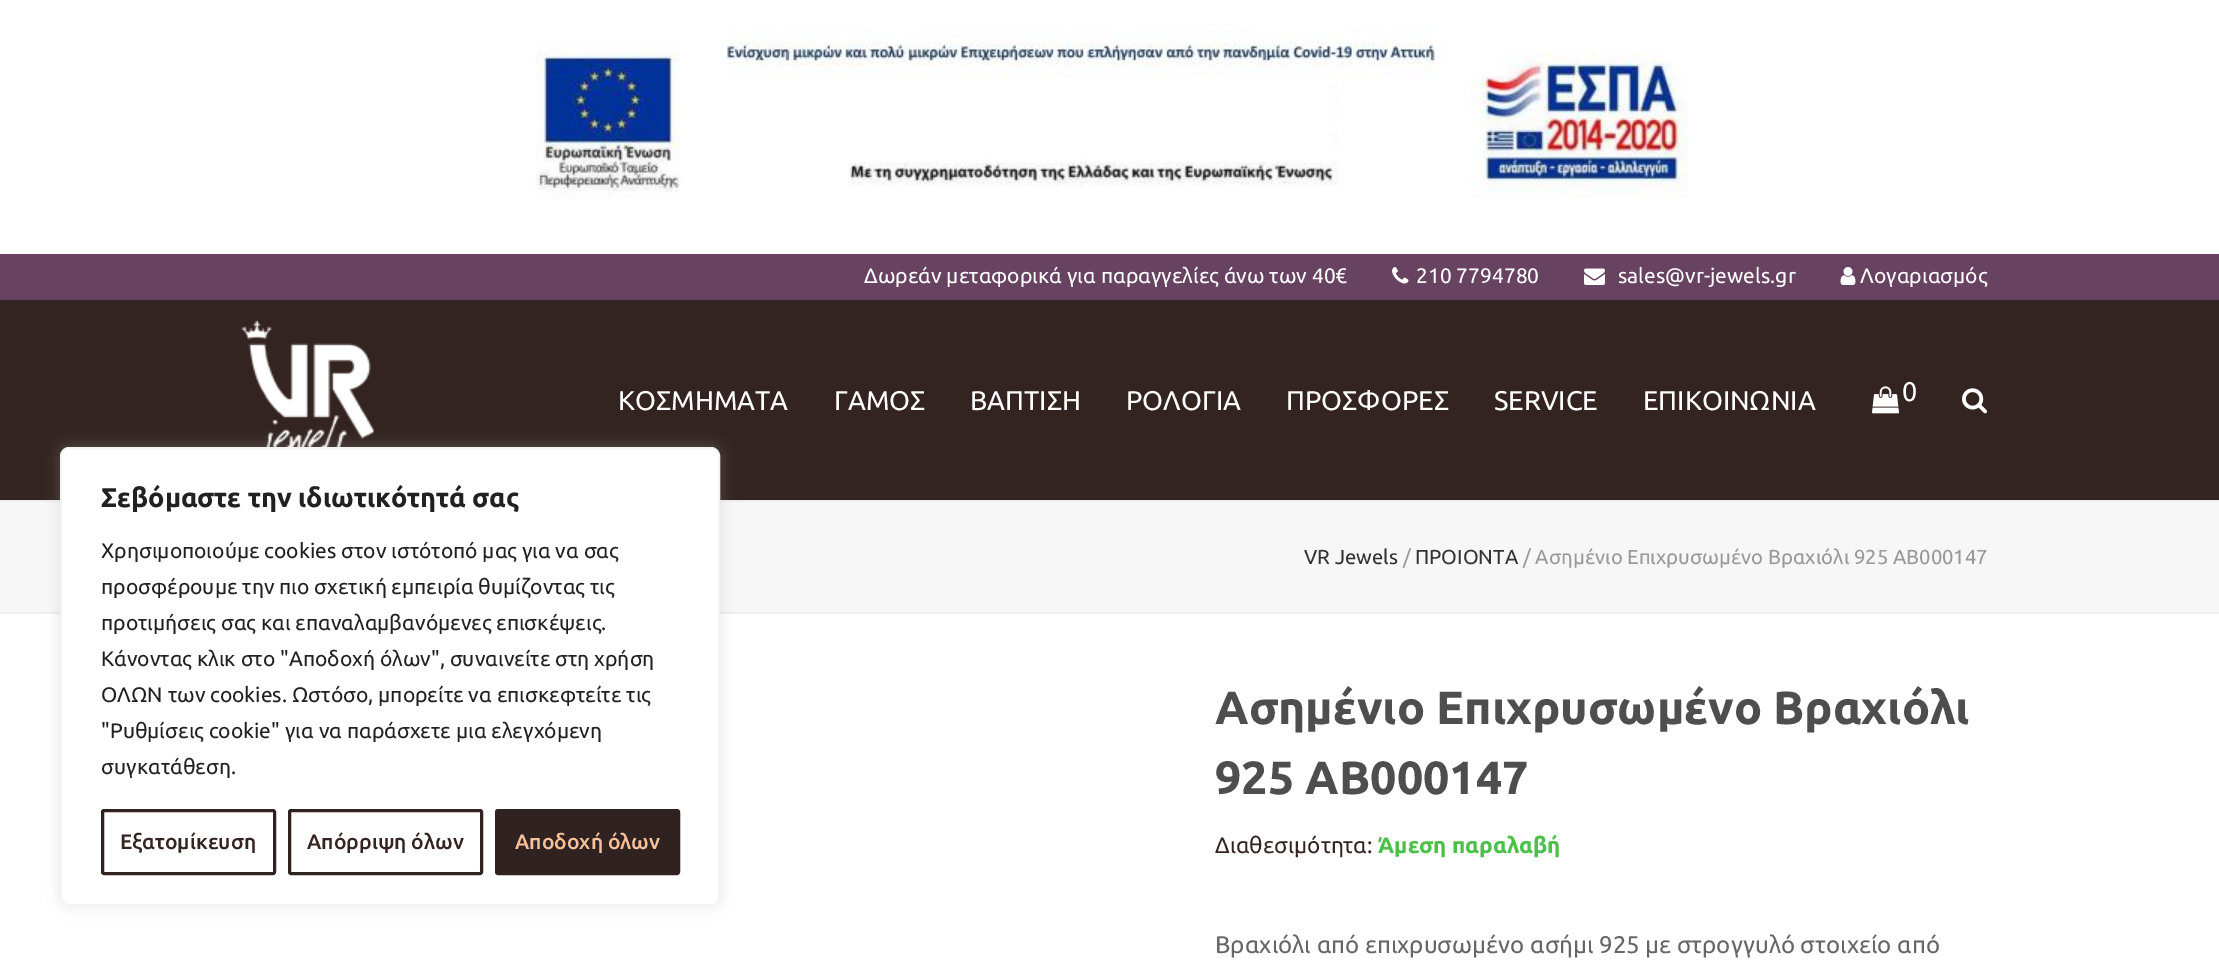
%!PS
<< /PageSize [2219 965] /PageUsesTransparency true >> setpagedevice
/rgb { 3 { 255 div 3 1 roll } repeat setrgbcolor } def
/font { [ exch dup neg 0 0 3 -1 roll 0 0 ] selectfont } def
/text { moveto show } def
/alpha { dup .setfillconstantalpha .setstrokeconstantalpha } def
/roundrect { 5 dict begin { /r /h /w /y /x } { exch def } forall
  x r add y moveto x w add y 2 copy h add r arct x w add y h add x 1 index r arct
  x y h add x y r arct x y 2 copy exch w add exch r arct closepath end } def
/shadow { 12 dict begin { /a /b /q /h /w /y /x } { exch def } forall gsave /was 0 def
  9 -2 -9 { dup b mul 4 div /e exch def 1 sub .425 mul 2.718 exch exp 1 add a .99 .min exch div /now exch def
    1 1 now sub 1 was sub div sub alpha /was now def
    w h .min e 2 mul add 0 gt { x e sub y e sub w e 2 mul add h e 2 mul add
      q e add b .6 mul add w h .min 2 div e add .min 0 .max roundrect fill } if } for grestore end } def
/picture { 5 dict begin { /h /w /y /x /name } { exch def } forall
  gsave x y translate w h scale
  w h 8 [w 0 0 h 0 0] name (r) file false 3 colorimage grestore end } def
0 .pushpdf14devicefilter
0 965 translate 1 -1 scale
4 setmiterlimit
255 255 255 rgb
0 0 2219 965 rectfill
51 36 33 rgb
0 300 2219 200 rectfill
(img_05.rgb) 241 320 133 127 picture
247 247 247 rgb
0 502 2219 110 rectfill
238 238 238 rgb
0 500 2219 2 rectfill
0 612 2219 2 rectfill
172 171 171 rgb
60 446 660 459 9 7.5 0.3 shadow
255 255 255 rgb
61 448 658 457 8 roundrect gsave fill grestore
244 244 244 rgb
2 setlinewidth
stroke
48 34 33 rgb
3 setlinewidth
102.5 810.5 172 63 1.5 roundrect stroke
289.5 810.5 192 63 1.5 roundrect stroke
496.5 810.5 182 63 1.5 roundrect gsave fill grestore
stroke
(img_01.rgb) 535 30 1154 168 picture
103 66 97 rgb
0 254 2219 46 rectfill
(img_02.rgb) 1392 267 17 17 picture
(img_03.rgb) 1584 268 21 17 picture
(img_04.rgb) 1840 267 16 18 picture
(img_06.rgb) 1872 386 27 28 picture
(img_07.rgb) 1962 388 26 26 picture
/Ubuntu-Bold 27 font
33 33 33 rgb
(Σεβόμαστε την ιδιωτικότητά σας) 101 507 text
/Ubuntu-Regular 21 font
(Χρησιμοποιούμε cookies στον ιστότοπό μας για να σας) 101 558 text
(προσφέρουμε την πιο σχετική εμπειρία θυμίζοντας τις) 101 594 text
(προτιμήσεις σας και επαναλαμβανόμενες επισκέψεις.) 101 630 text
(Κάνοντας κλικ στο "Αποδοχή όλων", συναινείτε στη χρήση) 101 666 text
(ΟΛΩΝ των cookies. Ωστόσο, μπορείτε να επισκεφτείτε τις) 101 702 text
("Ρυθμίσεις cookie" για να παράσχετε μια ελεγχόμενη) 101 738 text
(συγκατάθεση.) 101 774 text
/Ubuntu-Medium 21 font
51 36 33 rgb
(Εξατομίκευση) 120 849 text
(Απόρριψη όλων) 307 849 text
251 193 153 rgb
(Αποδοχή όλων) 515 849 text
/Ubuntu-Regular 21 font
255 255 255 rgb
(Δωρεάν μεταφορικά για παραγγελίες άνω των 40€) 864 283 text
(210 7794780) 1416 283 text
(sales@vr-jewels.gr) 1618 283 text
(Λογαριασμός) 1860 283 text
/Ubuntu-Regular 27 font
(ΚΟΣΜΗΜΑΤΑ) 618 410 text
(ΓΑΜΟΣ) 834 410 text
(ΒΑΠΤΙΣΗ) 970 410 text
(ΡΟΛΟΓΙΑ) 1126 410 text
(ΠΡΟΣΦΟΡΕΣ) 1286 410 text
(SERVICE) 1494 410 text
(ΕΠΙΚΟΙΝΩΝΙΑ) 1643 410 text
(0) 1902 401 text
/Ubuntu-Regular 20.25 font
51 51 51 rgb
(VR Jewels) 1304 564 text
153 153 153 rgb
(/) 1403 564 text
51 51 51 rgb
(ΠΡΟΙΟΝΤΑ) 1415 564 text
153 153 153 rgb
(/ Ασημένιο Επιχρυσωμένο Βραχιόλι 925 AB000147) 1523 564 text
/Ubuntu-Bold 46.5 font
78 78 78 rgb
(Ασημένιο Επιχρυσωμένο Βραχιόλι) 1215 724 text
(925 AB000147) 1215 794 text
/Ubuntu-Regular 22.5 font
51 36 33 rgb
(Διαθεσιμότητα:) 1215 853 text
/Ubuntu-Bold 22.5 font
76 193 73 rgb
(Άμεση παραλαβή) 1378 853 text
/Ubuntu-Regular 24 font
102 102 102 rgb
(Βραχιόλι από επιχρυσωμένο ασήμι 925 με στρογγυλό στοιχείο από) 1215 953 text
.poppdf14devicefilter showpage
